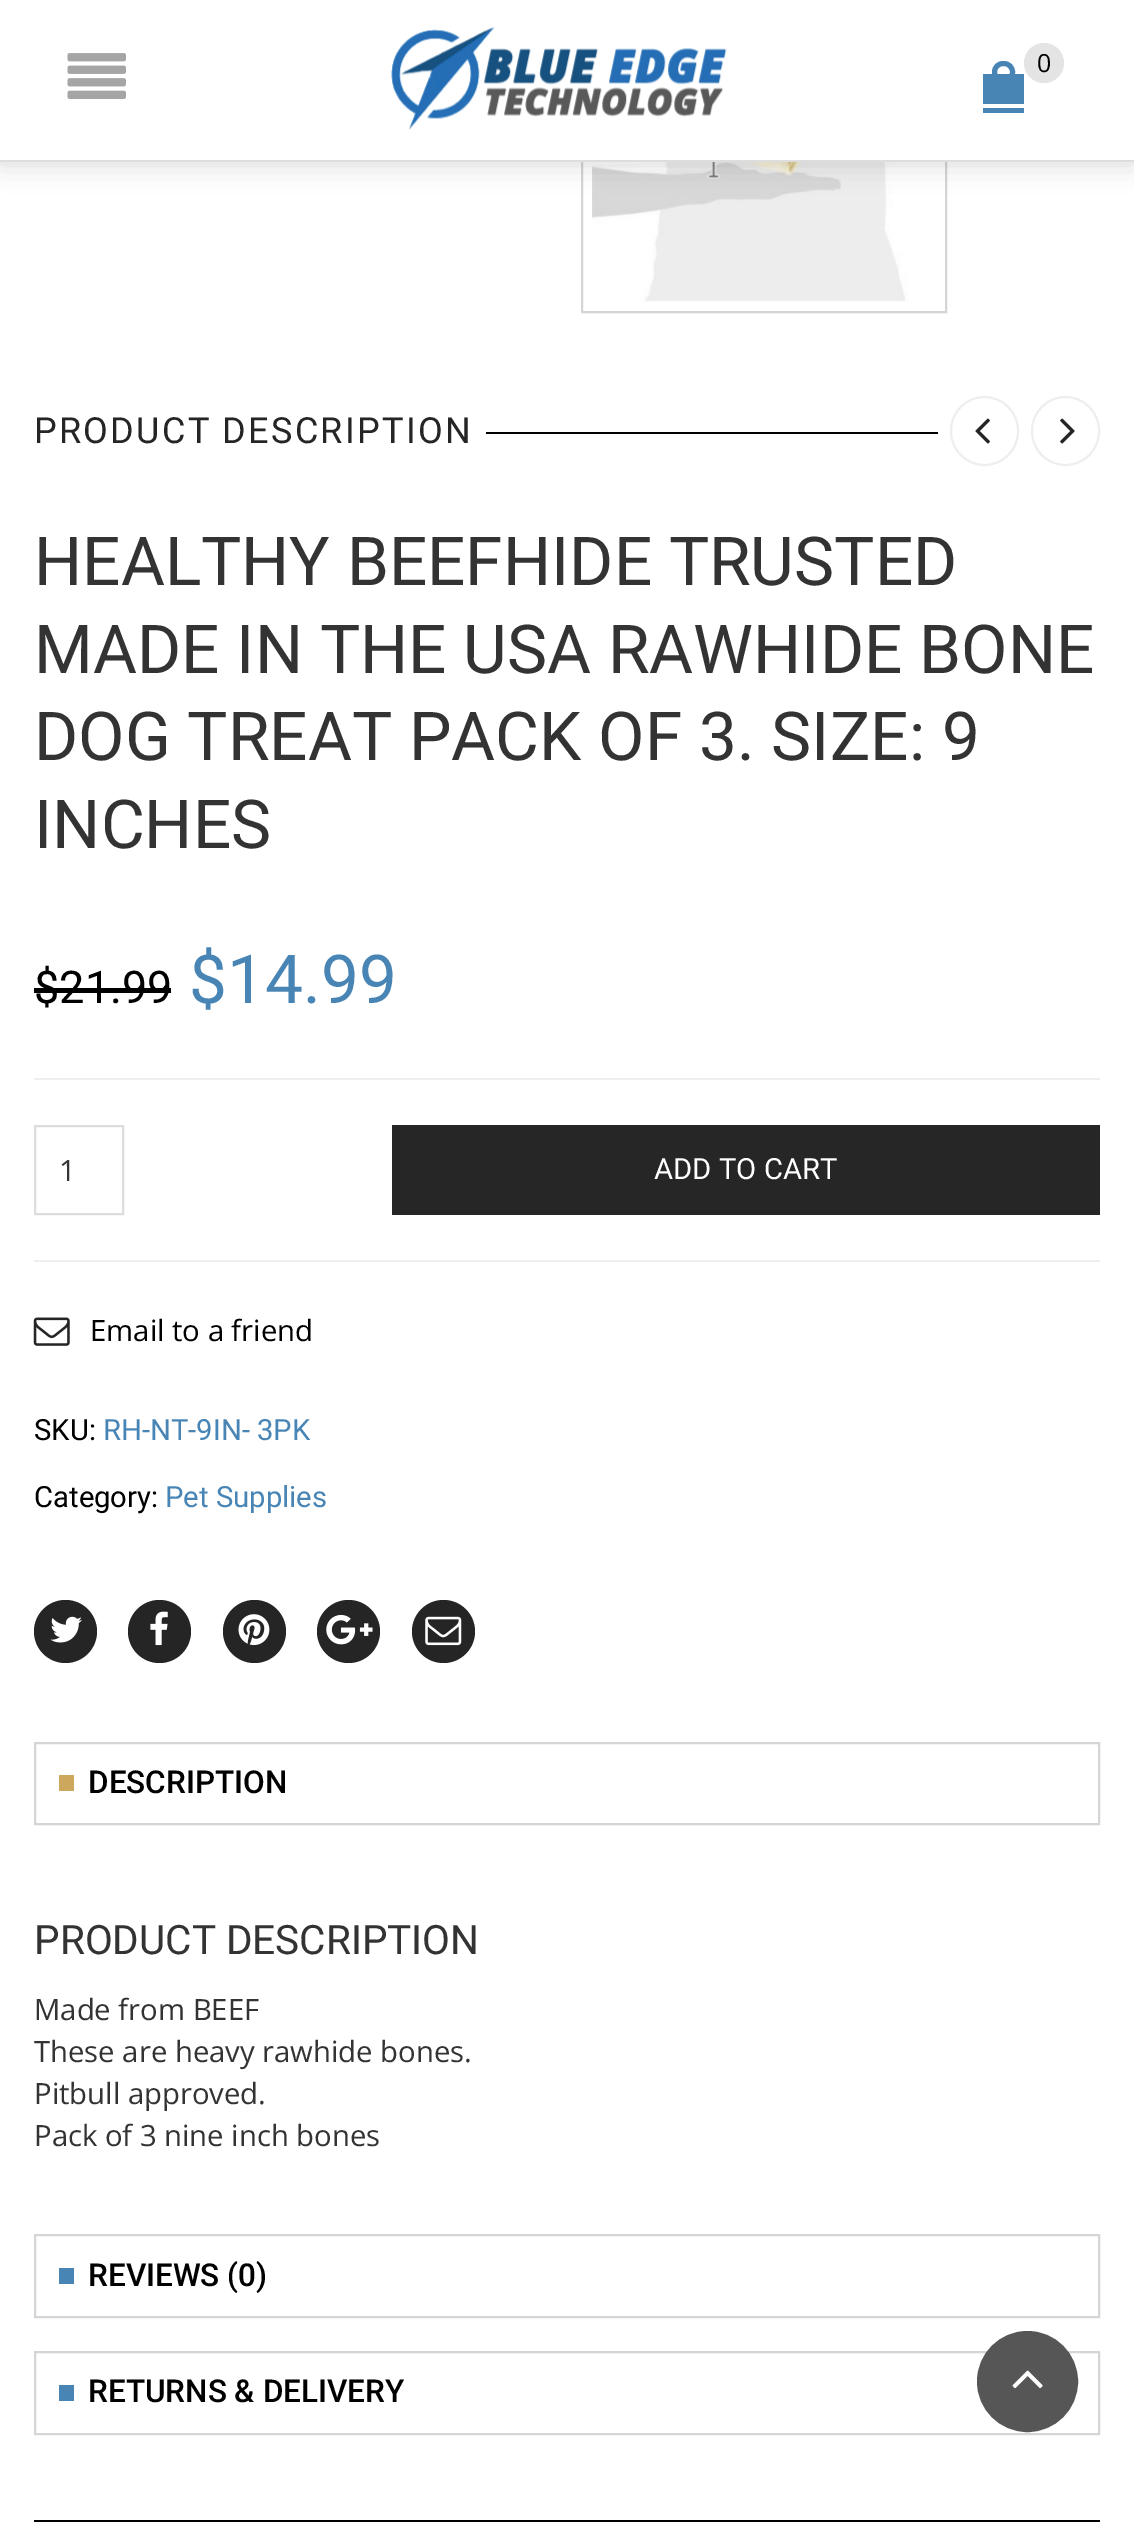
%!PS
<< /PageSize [1134 2543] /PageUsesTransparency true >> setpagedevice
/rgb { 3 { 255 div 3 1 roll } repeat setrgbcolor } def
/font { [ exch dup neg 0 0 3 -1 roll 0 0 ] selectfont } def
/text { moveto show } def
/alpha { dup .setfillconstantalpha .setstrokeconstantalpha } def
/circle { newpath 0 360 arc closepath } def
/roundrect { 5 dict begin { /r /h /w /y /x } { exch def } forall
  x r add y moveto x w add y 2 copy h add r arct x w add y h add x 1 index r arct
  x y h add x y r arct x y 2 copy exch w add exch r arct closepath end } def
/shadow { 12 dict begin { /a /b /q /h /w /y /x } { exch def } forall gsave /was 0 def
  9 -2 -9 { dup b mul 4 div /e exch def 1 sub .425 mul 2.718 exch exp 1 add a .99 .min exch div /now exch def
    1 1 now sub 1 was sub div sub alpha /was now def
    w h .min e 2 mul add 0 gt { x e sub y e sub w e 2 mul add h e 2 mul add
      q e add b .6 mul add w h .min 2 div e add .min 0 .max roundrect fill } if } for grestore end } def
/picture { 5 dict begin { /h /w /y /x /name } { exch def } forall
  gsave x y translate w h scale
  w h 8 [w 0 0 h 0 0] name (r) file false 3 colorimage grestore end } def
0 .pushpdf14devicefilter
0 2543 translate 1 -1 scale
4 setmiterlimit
255 255 255 rgb
0 0 1134 2543 rectfill
213 213 213 rgb
2 setlinewidth
582 -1 364 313 rectstroke
(img_03.rgb) 592 162 345 140 picture
0 0 0 rgb
0 2 1134 162 0 13.5 0.15 shadow
255 255 255 rgb
0 0 1134 160 rectfill
221 221 221 rgb
0 160 1134 2 rectfill
(img_01.rgb) 67 53 59 46 picture
(img_02.rgb) 391 27 336 103 picture
72 133 181 rgb
983 74 41 30 rectfill
5 setlinewidth
994.5 63.5 18 17 8.5 roundrect stroke
983 108 41 5 rectfill
228 228 228 rgb
1044 63 20 circle fill
0 0 0 rgb
486 432 452 2 rectfill
238 238 238 rgb
2 setlinewidth
951 397 67 68 33.5 roundrect stroke
(img_04.rgb) 975 418 15 26 picture
1032 397 67 68 33.5 roundrect stroke
(img_05.rgb) 1060 418 15 26 picture
0 0 0 rgb
34 988 137 5 rectfill
238 238 238 rgb
34 1078 1066 2 rectfill
34 1260 1066 2 rectfill
221 221 221 rgb
35 1126 88 88 rectstroke
38 38 38 rgb
392 1125 708 90 rectfill
(img_06.rgb) 33 1317 37 29 picture
37 37 37 rgb
65.5 1631.5 31.5 circle fill
(img_07.rgb) 50 1616 32 27 picture
159.5 1631.5 31.5 circle fill
(img_08.rgb) 150 1611 18 35 picture
254.5 1631.5 31.5 circle fill
(img_09.rgb) 238 1614 32 32 picture
348.5 1631.5 31.5 circle fill
(img_10.rgb) 326 1614 47 31 picture
443.5 1631.5 31.5 circle fill
(img_11.rgb) 425 1616 37 30 picture
213 213 213 rgb
35 1743 1064 81 rectstroke
205 168 92 rgb
59 1775 15 16 rectfill
213 213 213 rgb
35 2235 1064 82 rectstroke
72 133 181 rgb
59 2268 15 16 rectfill
213 213 213 rgb
35 2352 1064 82 rectstroke
72 133 181 rgb
59 2385 15 16 rectfill
0 0 0 rgb
34 2520 1066 2 rectfill
86 86 86 rgb
1027.5 2381.5 48 circle gsave fill grestore
5 setlinewidth
stroke
(img_12.rgb) 1012 2370 31 19 picture
/OpenSans-Regular 25 font
0 0 0 rgb
(0) 1037 72 text
/Roboto-Regular 36 font
37 37 37 rgb
34 443 moveto 2.25 0 (PRODUCT DESCRIPTION) ashow
/Roboto-Regular 67.5 font
51 51 51 rgb
(HEALTHY BEEFHIDE TRUSTED) 34 585 text
(MADE IN THE USA RAWHIDE BONE) 34 673 text
(DOG TREAT PACK OF 3. SIZE: 9) 34 760 text
(INCHES) 34 848 text
/Roboto-Regular 45 font
0 0 0 rgb
($21.99) 34 1003 text
/Roboto-Regular 67.5 font
72 133 181 rgb
($14.99) 189 1003 text
/OpenSans-Regular 29.25 font
51 51 51 rgb
(1) 59 1181 text
/Roboto-Regular 29.25 font
255 255 255 rgb
(ADD TO CART) 654 1179 text
/OpenSans-Regular 29.25 font
0 0 0 rgb
(Email to a friend) 90 1341 text
/Roboto-Regular 29.25 font
(SKU:) 34 1440 text
72 133 181 rgb
(RH-NT-9IN- 3PK) 103 1440 text
0 0 0 rgb
(Category:) 34 1507 text
72 133 181 rgb
(Pet Supplies) 165 1507 text
/Roboto-Medium 31.5 font
0 0 0 rgb
(DESCRIPTION) 88 1793 text
/Roboto-Regular 40.5 font
51 51 51 rgb
(PRODUCT DESCRIPTION) 34 1954 text
/OpenSans-Regular 29.25 font
(Made from BEEF) 34 2020 text
(These are heavy rawhide bones.) 34 2062 text
(Pitbull approved.) 34 2104 text
(Pack of 3 nine inch bones) 34 2146 text
/Roboto-Medium 31.5 font
0 0 0 rgb
(REVIEWS \(0\)) 88 2286 text
(RETURNS & DELIVERY) 88 2402 text
.poppdf14devicefilter showpage
